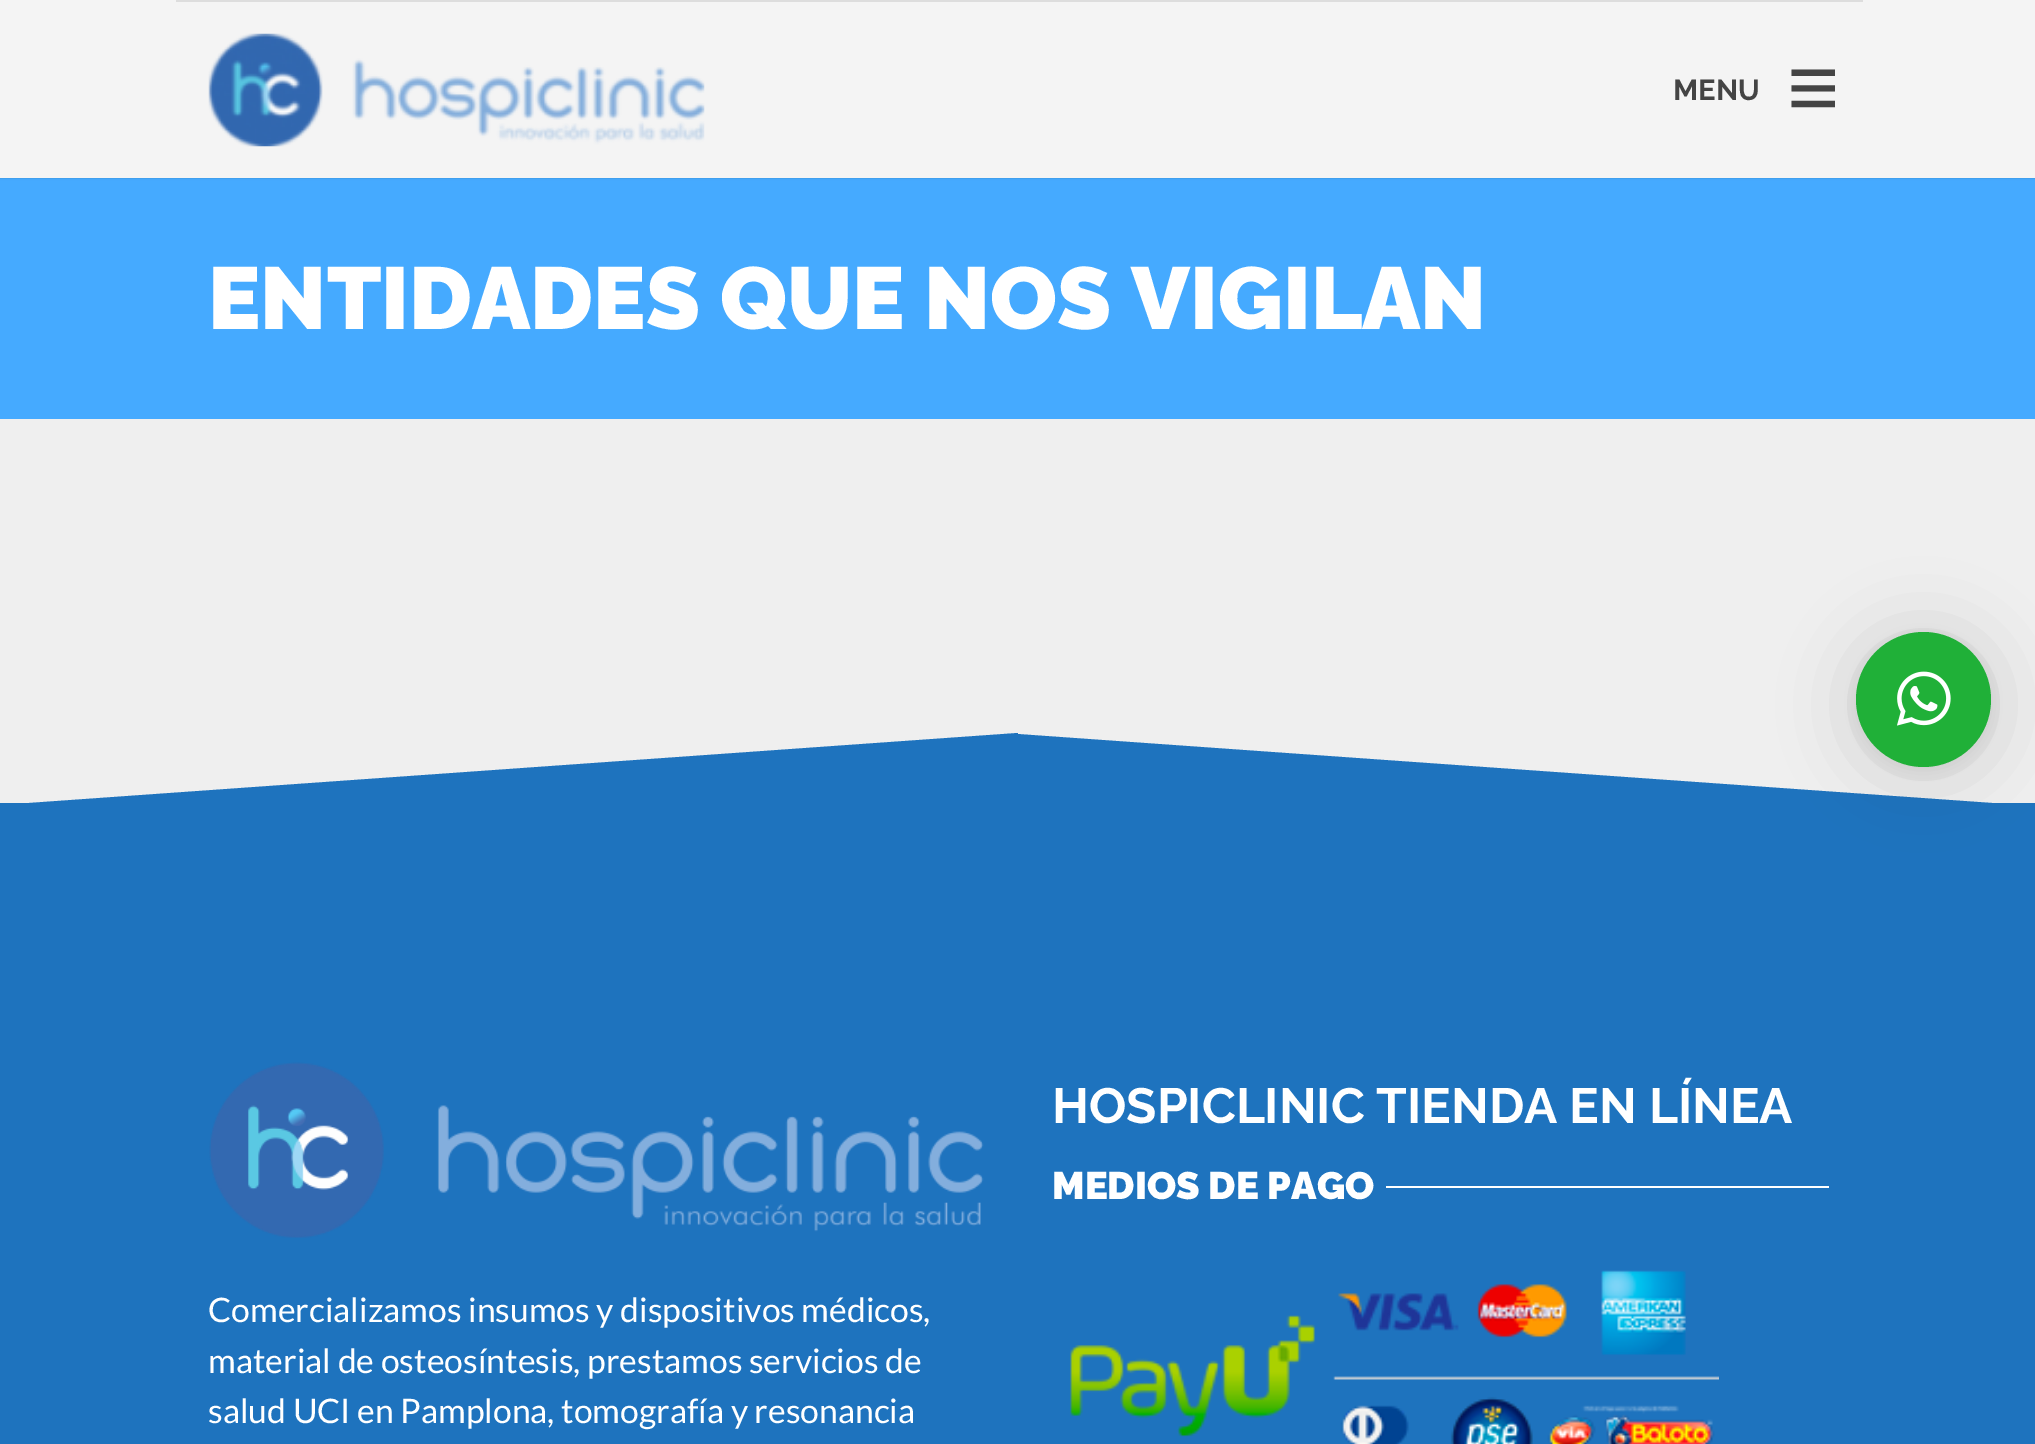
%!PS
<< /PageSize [2035 1444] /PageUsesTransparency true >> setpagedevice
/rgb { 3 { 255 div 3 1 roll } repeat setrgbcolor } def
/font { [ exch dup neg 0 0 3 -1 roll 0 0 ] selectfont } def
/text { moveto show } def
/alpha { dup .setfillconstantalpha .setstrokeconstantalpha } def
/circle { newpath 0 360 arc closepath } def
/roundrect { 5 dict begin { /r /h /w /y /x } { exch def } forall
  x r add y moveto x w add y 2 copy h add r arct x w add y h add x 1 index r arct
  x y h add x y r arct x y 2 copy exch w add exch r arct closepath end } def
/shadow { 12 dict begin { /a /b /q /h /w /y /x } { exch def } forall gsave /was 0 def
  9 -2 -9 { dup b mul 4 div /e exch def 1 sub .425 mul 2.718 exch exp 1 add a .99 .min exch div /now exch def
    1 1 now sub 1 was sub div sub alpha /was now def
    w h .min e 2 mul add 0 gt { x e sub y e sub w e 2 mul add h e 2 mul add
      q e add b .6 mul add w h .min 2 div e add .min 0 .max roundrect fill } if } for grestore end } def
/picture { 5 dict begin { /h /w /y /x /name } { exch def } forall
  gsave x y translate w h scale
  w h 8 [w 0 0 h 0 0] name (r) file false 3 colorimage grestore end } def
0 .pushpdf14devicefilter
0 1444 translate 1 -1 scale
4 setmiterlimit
239 239 239 rgb
0 0 2035 1444 rectfill
69 170 255 rgb
0 178 2035 241 rectfill
0 0 0 rgb
0 0 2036 178 0 1 0.2 shadow
244 244 244 rgb
0 0 2035 178 rectfill
221 221 221 rgb
176 0 1687 2 rectfill
(img_01.rgb) 208 33 497 114 picture
30 115 190 rgb
0 803 2035 641 rectfill
1017 806 moveto 0 -72 rlineto 1017 72 rlineto closepath fill
1018 805 moveto 0 -72 rlineto -1017 72 rlineto closepath fill
255 255 255 rgb
1386 1186 443 2 rectfill
(img_02.rgb) 1070 1270 649 174 picture
(img_03.rgb) 209 1062 775 176 picture
0 0 0 rgb
1856 637 135 135 67.5 36 0.16 shadow
1856 635 135 135 67.5 7 0.06 shadow
32 176 56 rgb
1923.5 699.5 67.5 circle fill
(img_04.rgb) 1897 671 54 55 picture
/Raleway-Bold 29 font
68 68 68 rgb
(MENU) 1673 100 text
/LiberationSans-Bold 90 font
(≡) 1787 118 text
/Raleway-Black 87.75 font
255 255 255 rgb
(ENTIDADES QUE NOS VIGILAN) 208 329 text
/Raleway-Bold 49.5 font
(HOSPICLINIC TIENDA EN LÍNEA) 1052 1123 text
/Raleway-Black 38.25 font
(MEDIOS DE PAGO) 1052 1199 text
/Lato-Regular 33.75 font
(Comercializamos insumos y dispositivos médicos,) 208 1322 text
(material de osteosíntesis, prestamos servicios de) 208 1373 text
(salud UCI en Pamplona, tomografía y resonancia) 208 1423 text
.poppdf14devicefilter showpage
